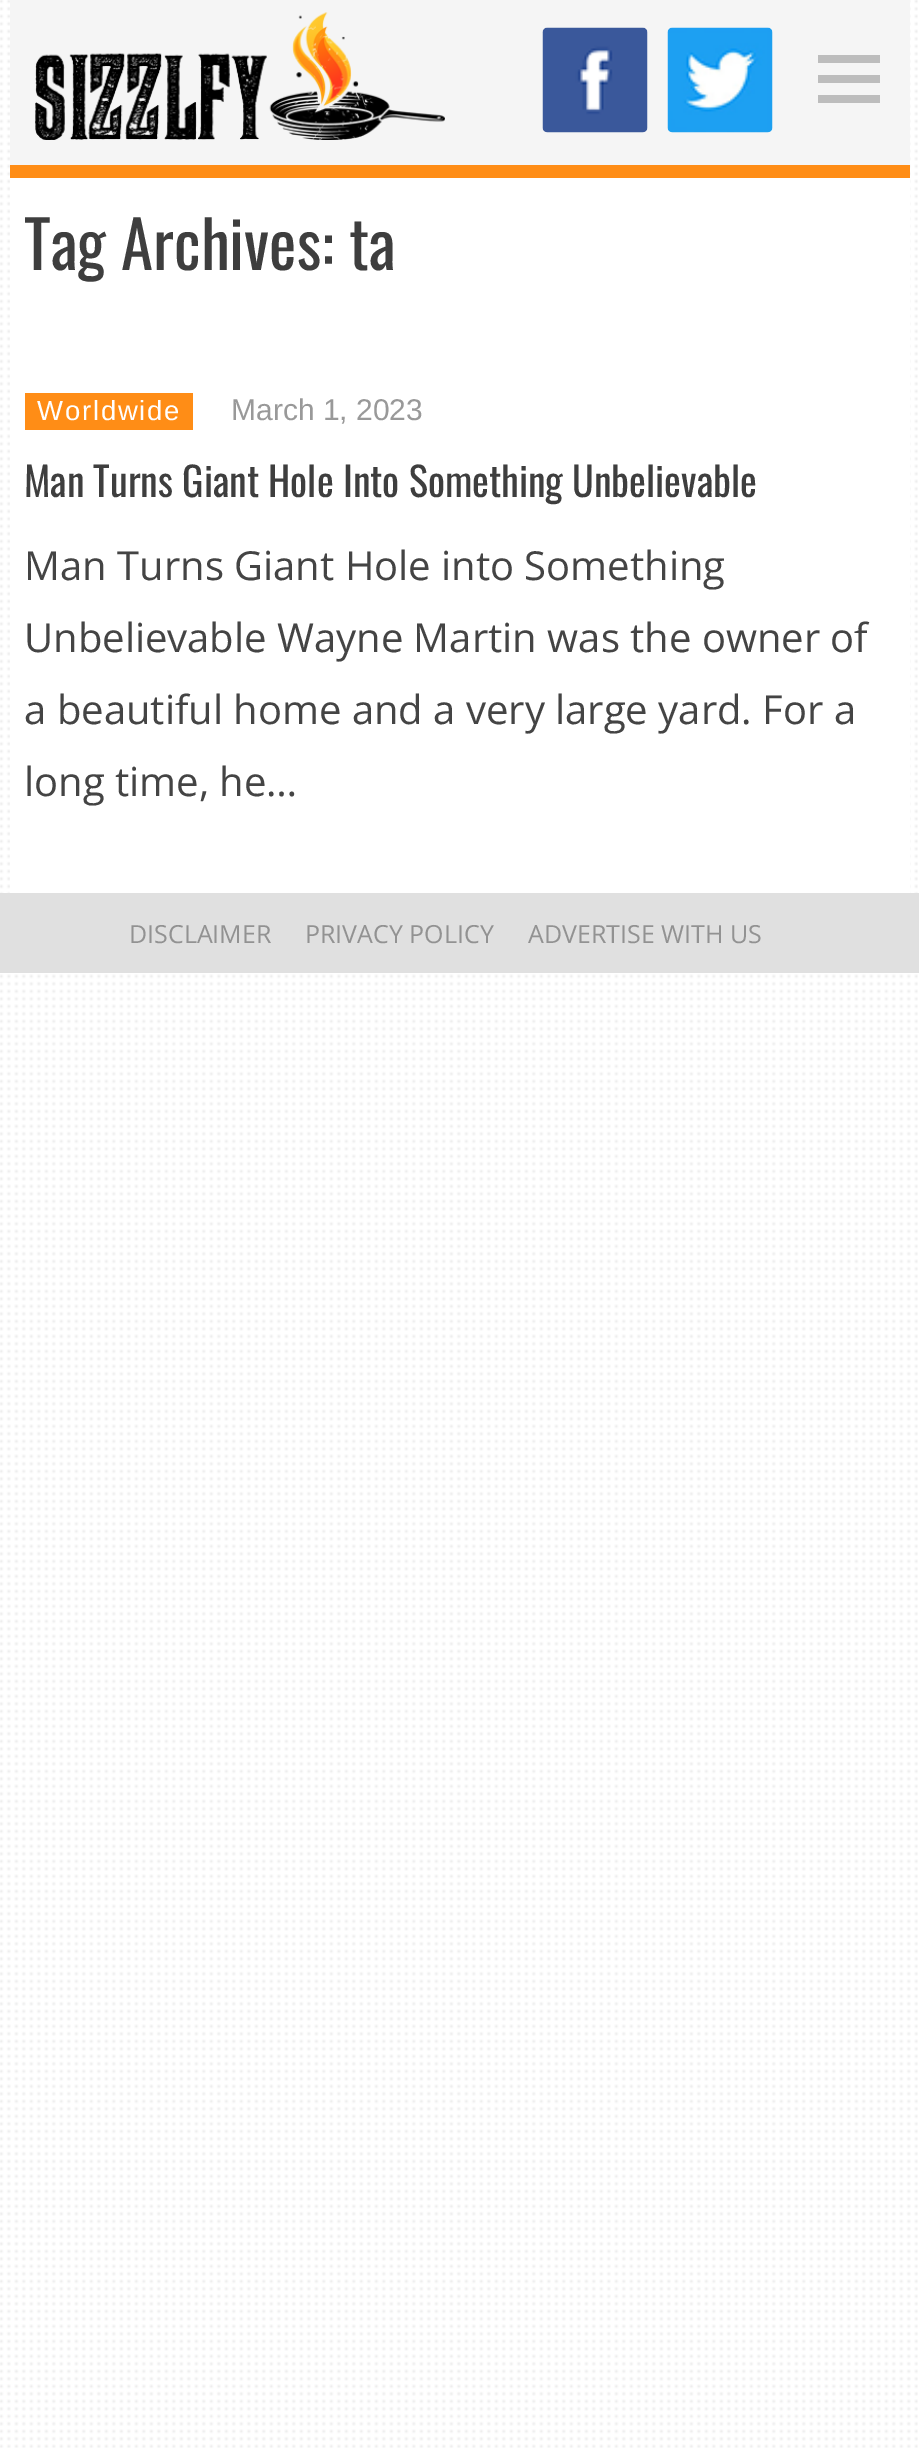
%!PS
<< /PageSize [919 2451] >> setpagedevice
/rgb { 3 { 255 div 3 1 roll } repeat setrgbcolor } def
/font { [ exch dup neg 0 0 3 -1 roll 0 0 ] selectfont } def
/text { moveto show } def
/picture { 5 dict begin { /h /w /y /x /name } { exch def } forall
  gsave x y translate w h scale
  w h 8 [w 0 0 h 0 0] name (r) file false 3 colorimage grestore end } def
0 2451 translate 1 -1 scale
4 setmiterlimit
255 255 255 rgb
0 0 919 2451 rectfill
(img_01.rgb) 0 0 918 2448 picture
245 245 245 rgb
10 0 900 165 rectfill
255 141 22 rgb
10 165 900 13 rectfill
(img_02.rgb) 35 12 410 128 picture
(img_03.rgb) 542 27 106 106 picture
(img_04.rgb) 667 27 106 106 picture
189 189 189 rgb
818 55 62 8 rectfill
818 75 62 8 rectfill
818 95 62 8 rectfill
255 255 255 rgb
10 179 900 714 rectfill
255 141 22 rgb
25 393 168 37 rectfill
224 224 224 rgb
0 893 919 80 rectfill
/Oswald-Regular 65 font
62 62 62 rgb
(Tag Archives: ta) 24 270 text
/LiberationSans-Regular 27.5 font
255 255 255 rgb
37 420 moveto 1.75 0 (Worldwide) ashow
/LiberationSans-Regular 30 font
153 153 153 rgb
(March 1, 2023) 231 420 text
/Oswald-Regular 40 font
62 62 62 rgb
(Man Turns Giant Hole Into Something Unbelievable) 24 497 text
/OpenSans-Regular 40 font
68 68 68 rgb
(Man Turns Giant Hole into Something) 24 580 text
(Unbelievable Wayne Martin was the owner of) 24 652 text
(a beautiful home and a very large yard. For a) 24 724 text
(long time, he…) 24 796 text
/OpenSans-Regular 25 font
146 146 146 rgb
(DISCLAIMER) 129 943 text
(PRIVACY POLICY) 305 943 text
(ADVERTISE WITH US) 528 943 text
showpage
